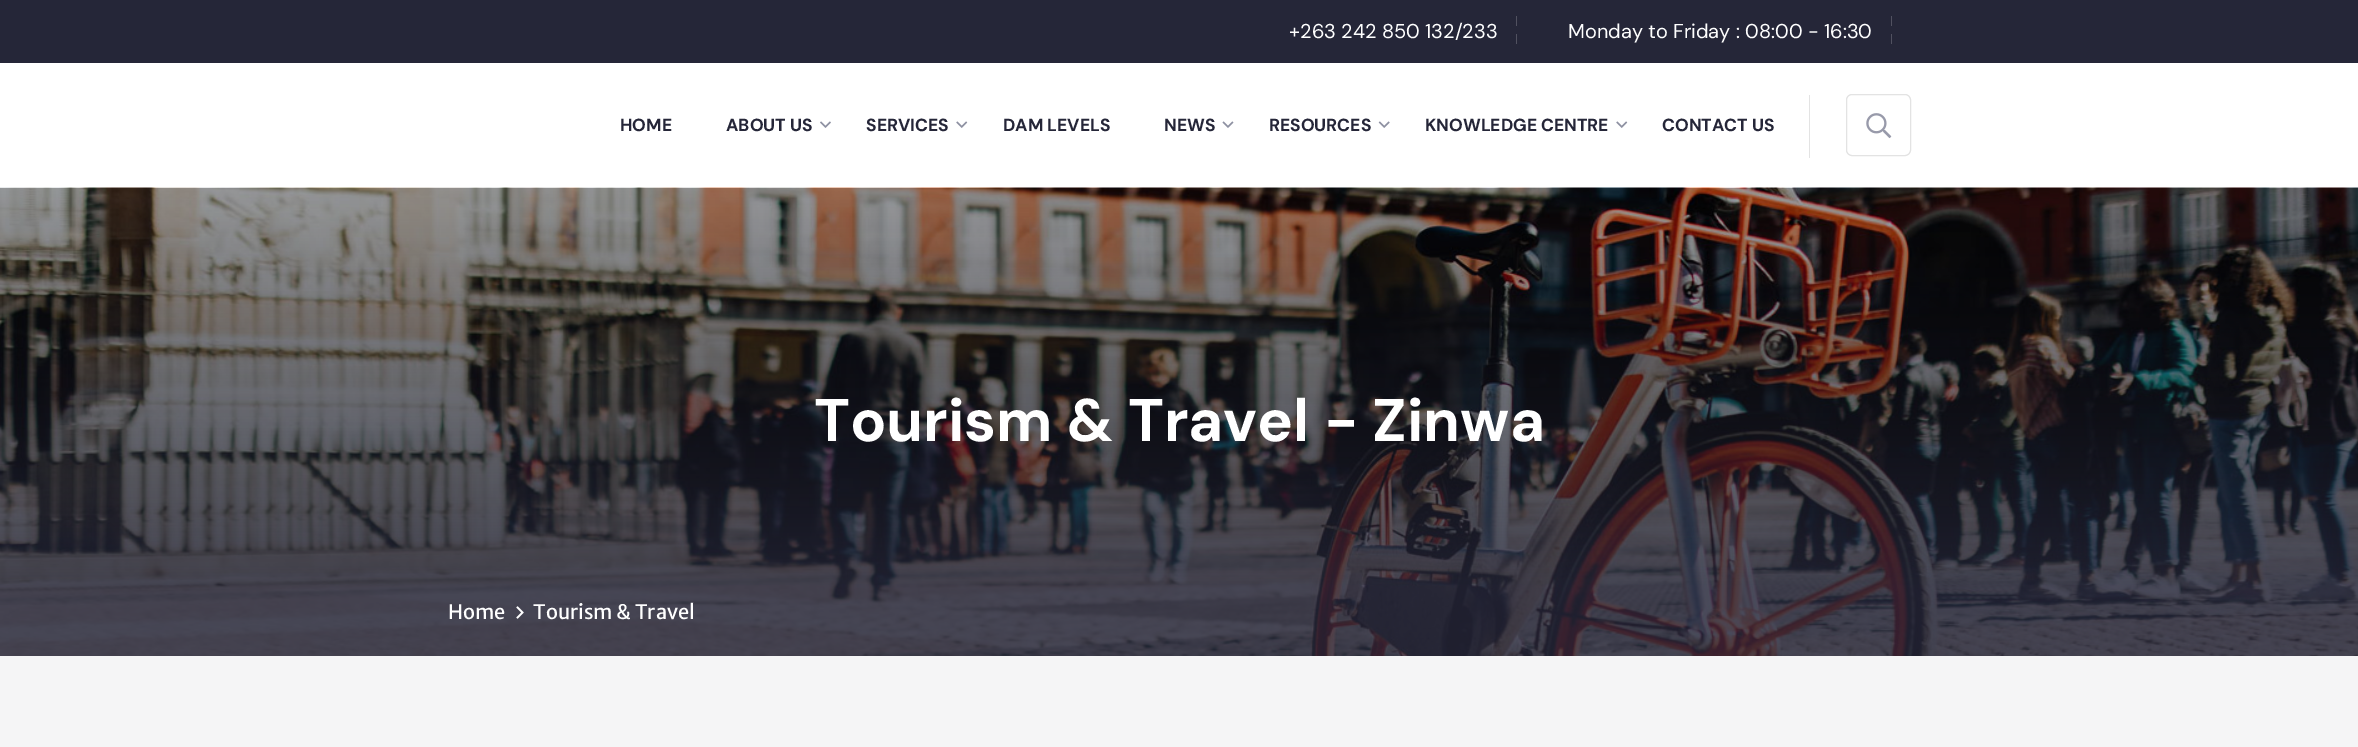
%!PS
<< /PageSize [2358 747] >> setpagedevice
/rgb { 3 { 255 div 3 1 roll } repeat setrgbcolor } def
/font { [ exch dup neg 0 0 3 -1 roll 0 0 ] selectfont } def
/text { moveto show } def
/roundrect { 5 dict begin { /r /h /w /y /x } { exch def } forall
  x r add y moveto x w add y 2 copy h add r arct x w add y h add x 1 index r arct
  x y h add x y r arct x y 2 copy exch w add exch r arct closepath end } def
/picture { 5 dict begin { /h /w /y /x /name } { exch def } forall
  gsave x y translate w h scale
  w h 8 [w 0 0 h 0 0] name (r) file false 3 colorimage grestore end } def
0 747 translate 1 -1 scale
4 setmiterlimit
255 255 255 rgb
0 0 2358 747 rectfill
37 38 56 rgb
0 0 2358 63 rectfill
81 81 96 rgb
1516 16 1 10 rectfill
1516 34 1 10 rectfill
1891 16 1 10 rectfill
1891 34 1 10 rectfill
(img_01.rgb) 820 121 11 7 picture
(img_02.rgb) 956 121 12 7 picture
(img_03.rgb) 1222 121 12 7 picture
(img_04.rgb) 1378 121 12 7 picture
(img_02.rgb) 1616 121 12 7 picture
227 227 227 rgb
1809 95 1 63 rectfill
1846.5 94.5 64 61 5.5 roundrect stroke
(img_05.rgb) 1866 113 26 26 picture
(img_06.rgb) 0 187 2358 469 picture
(img_07.rgb) 516 606 8 13 picture
245 245 246 rgb
0 656 2358 91 rectfill
/DMSans-Regular 20 font
255 255 255 rgb
(+263 242 850 132/233) 1289 38 text
(Monday to Friday : 08:00 - 16:30) 1568 38 text
/DMSans-Bold 17.5 font
37 38 56 rgb
(HOME) 620 131 text
(ABOUT US) 726 131 text
(SERVICES) 866 131 text
(DAM LEVELS) 1003 131 text
(NEWS) 1164 131 text
(RESOURCES) 1269 131 text
(KNOWLEDGE CENTRE) 1425 131 text
(CONTACT US) 1662 131 text
/DMSans-Bold 60 font
255 255 255 rgb
(Tourism & Travel - Zinwa) 814 441 text
/MerriweatherSans-Regular 20 font
(Home) 448 619 text
(Tourism & Travel) 533 619 text
showpage
